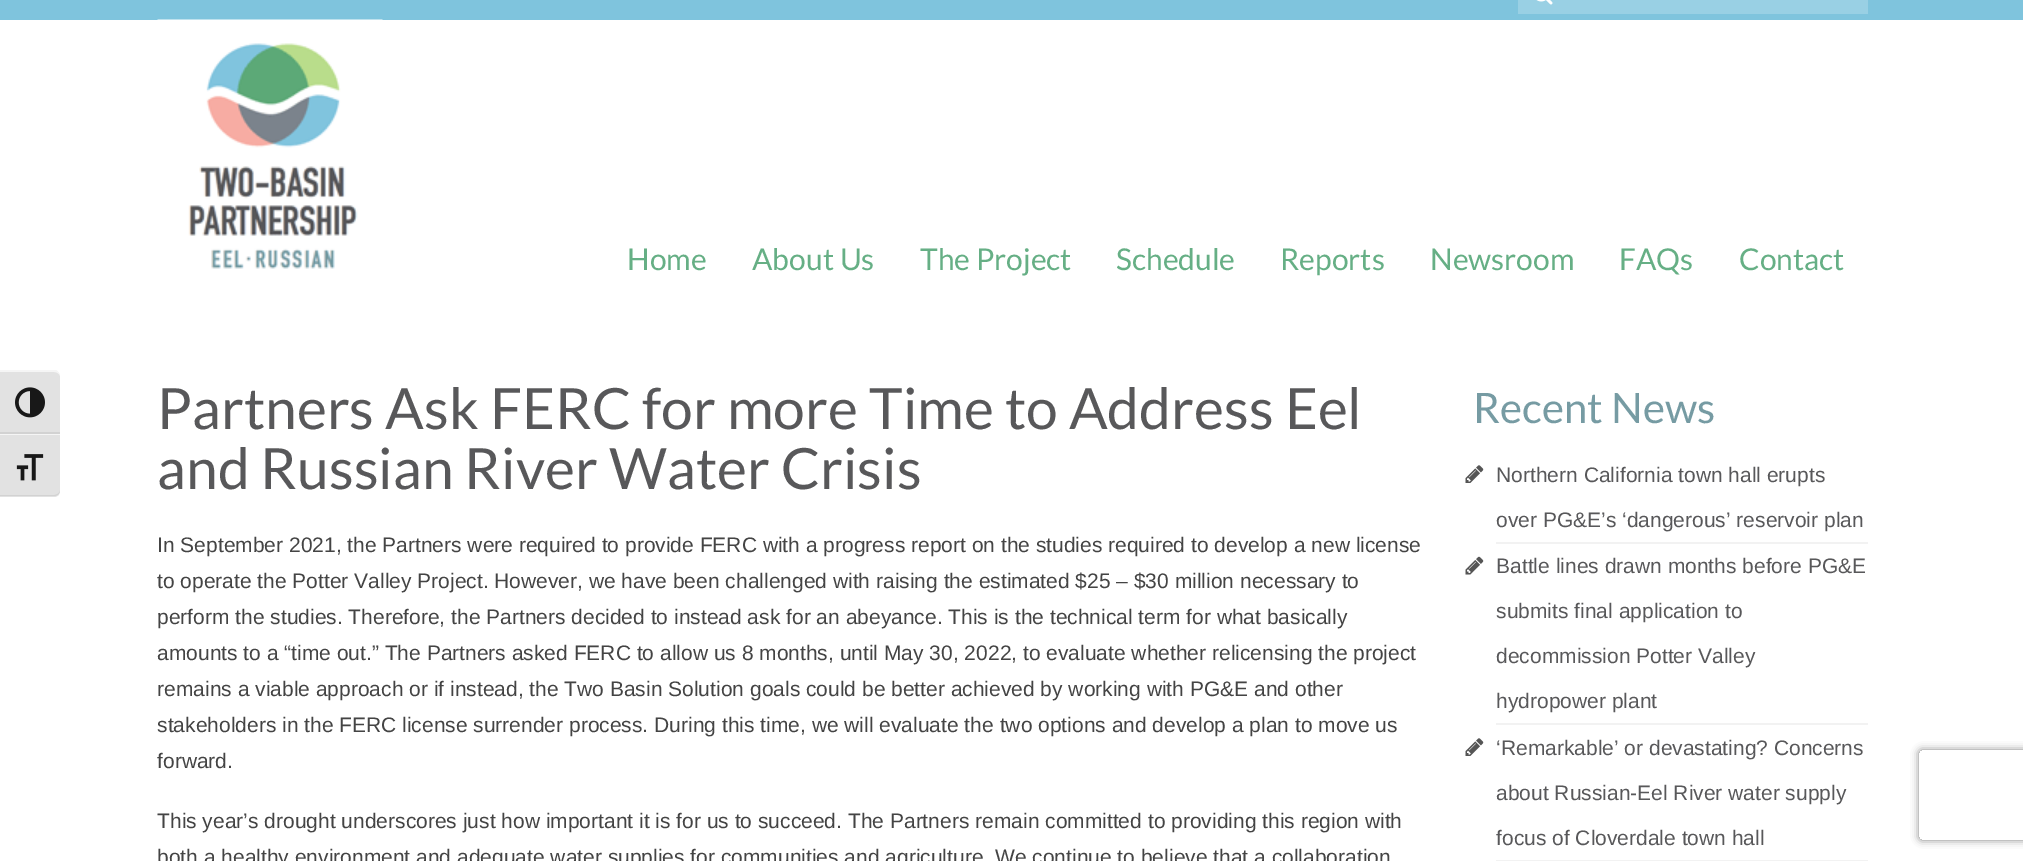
%!PS
<< /PageSize [2023 861] /PageUsesTransparency true >> setpagedevice
/rgb { 3 { 255 div 3 1 roll } repeat setrgbcolor } def
/font { [ exch dup neg 0 0 3 -1 roll 0 0 ] selectfont } def
/text { moveto show } def
/alpha { dup .setfillconstantalpha .setstrokeconstantalpha } def
/roundrect { 5 dict begin { /r /h /w /y /x } { exch def } forall
  x r add y moveto x w add y 2 copy h add r arct x w add y h add x 1 index r arct
  x y h add x y r arct x y 2 copy exch w add exch r arct closepath end } def
/shadow { 12 dict begin { /a /b /q /h /w /y /x } { exch def } forall gsave /was 0 def
  9 -2 -9 { dup b mul 4 div /e exch def 1 sub .425 mul 2.718 exch exp 1 add a .99 .min exch div /now exch def
    1 1 now sub 1 was sub div sub alpha /was now def
    w h .min e 2 mul add 0 gt { x e sub y e sub w e 2 mul add h e 2 mul add
      q e add b .6 mul add w h .min 2 div e add .min 0 .max roundrect fill } if } for grestore end } def
/picture { 5 dict begin { /h /w /y /x /name } { exch def } forall
  gsave x y translate w h scale
  w h 8 [w 0 0 h 0 0] name (r) file false 3 colorimage grestore end } def
0 .pushpdf14devicefilter
0 861 translate 1 -1 scale
4 setmiterlimit
255 255 255 rgb
0 0 2023 861 rectfill
226 226 226 rgb
0 371 moveto 54 0 rlineto 3.5 0 6 2.5 6 6 rcurveto 0 57 rlineto -60 0 rlineto closepath fill
245 245 245 rgb
0 372 moveto 54 0 rlineto 3 0 6 2 6 4 rcurveto 0 -2 -2 -5 -4 -6 rcurveto -56 0 rlineto closepath fill
210 210 210 rgb
0 432 60 2 rectfill
(img_01.rgb) 15 387 30 31 picture
226 226 226 rgb
0 434 moveto 60 0 rlineto 0 57 rlineto 0 3.5 -2.5 6 -6 6 rcurveto -54 0 rlineto closepath fill
245 245 245 rgb
0 434 60 1 rectfill
210 210 210 rgb
0 495 moveto 0 1 rlineto 54 0 rlineto 3 0 6 -2 6 -6 rcurveto 0 3 -3 5 -6 5 rcurveto closepath fill
(img_02.rgb) 16 454 28 27 picture
127 196 221 rgb
0 0 2023 20 rectfill
153 208 228 rgb
1518 0 350 14 rectfill
(img_03.rgb) 1536 0 17 5 picture
(img_04.rgb) 157 19 226 250 picture
242 242 242 rgb
1496 542 372 2 rectfill
(img_05.rgb) 1465 465 19 18 picture
1496 723 372 2 rectfill
(img_06.rgb) 1465 556 19 19 picture
1496 860 372 1 rectfill
(img_05.rgb) 1465 738 19 18 picture
gsave
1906 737 moveto 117 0 rlineto 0 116 rlineto -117 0 rlineto closepath 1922 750 moveto 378 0 rlineto 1.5 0 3 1.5 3 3 rcurveto 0 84 rlineto 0 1.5 -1.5 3 -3 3 rcurveto -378 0 rlineto -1.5 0 -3 -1.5 -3 -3 rcurveto 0 -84 rlineto 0 -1.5 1.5 -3 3 -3 rcurveto closepath eoclip newpath
128 128 128 rgb
1919 750 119 90 3 4 1 shadow
grestore
/Lato-Regular 30 font
102 175 133 rgb
(Home) 627 270 text
(About Us) 752 270 text
(The Project) 920 270 text
(Schedule) 1116 270 text
(Reports) 1280 270 text
(Newsroom) 1430 270 text
(FAQs) 1619 270 text
(Contact) 1739 270 text
/Lato-Regular 57 font
88 88 90 rgb
(Partners Ask FERC for more Time to Address Eel) 157 429 text
(and Russian River Water Crisis) 157 489 text
/LiberationSans-Regular 21 font
68 68 68 rgb
(In September 2021, the Partners were required to provide FERC with a progress report on the studies required to develop a new license) 157 552 text
(to operate the Potter Valley Project. However, we have been challenged with raising the estimated $25 – $30 million necessary to) 157 588 text
(perform the studies. Therefore, the Partners decided to instead ask for an abeyance. This is the technical term for what basically) 157 624 text
(amounts to a “time out.” The Partners asked FERC to allow us 8 months, until May 30, 2022, to evaluate whether relicensing the project) 157 660 text
(remains a viable approach or if instead, the Two Basin Solution goals could be better achieved by working with PG&E and other) 157 696 text
(stakeholders in the FERC license surrender process. During this time, we will evaluate the two options and develop a plan to move us) 157 732 text
(forward.) 157 768 text
(This year’s drought underscores just how important it is for us to succeed. The Partners remain committed to providing this region with) 157 828 text
(both a healthy environment and adequate water supplies for communities and agriculture. We continue to believe that a collaboration) 157 864 text
/Lato-Regular 42 font
118 155 163 rgb
(Recent News) 1473 423 text
/LiberationSans-Regular 21 font
88 88 90 rgb
(Northern California town hall erupts) 1496 482 text
(over PG&E’s ‘dangerous’ reservoir plan) 1496 527 text
(Battle lines drawn months before PG&E) 1496 573 text
(submits final application to) 1496 618 text
(decommission Potter Valley) 1496 663 text
(hydropower plant) 1496 708 text
(‘Remarkable’ or devastating? Concerns) 1496 755 text
(about Russian-Eel River water supply) 1496 800 text
(focus of Cloverdale town hall) 1496 845 text
.poppdf14devicefilter showpage
